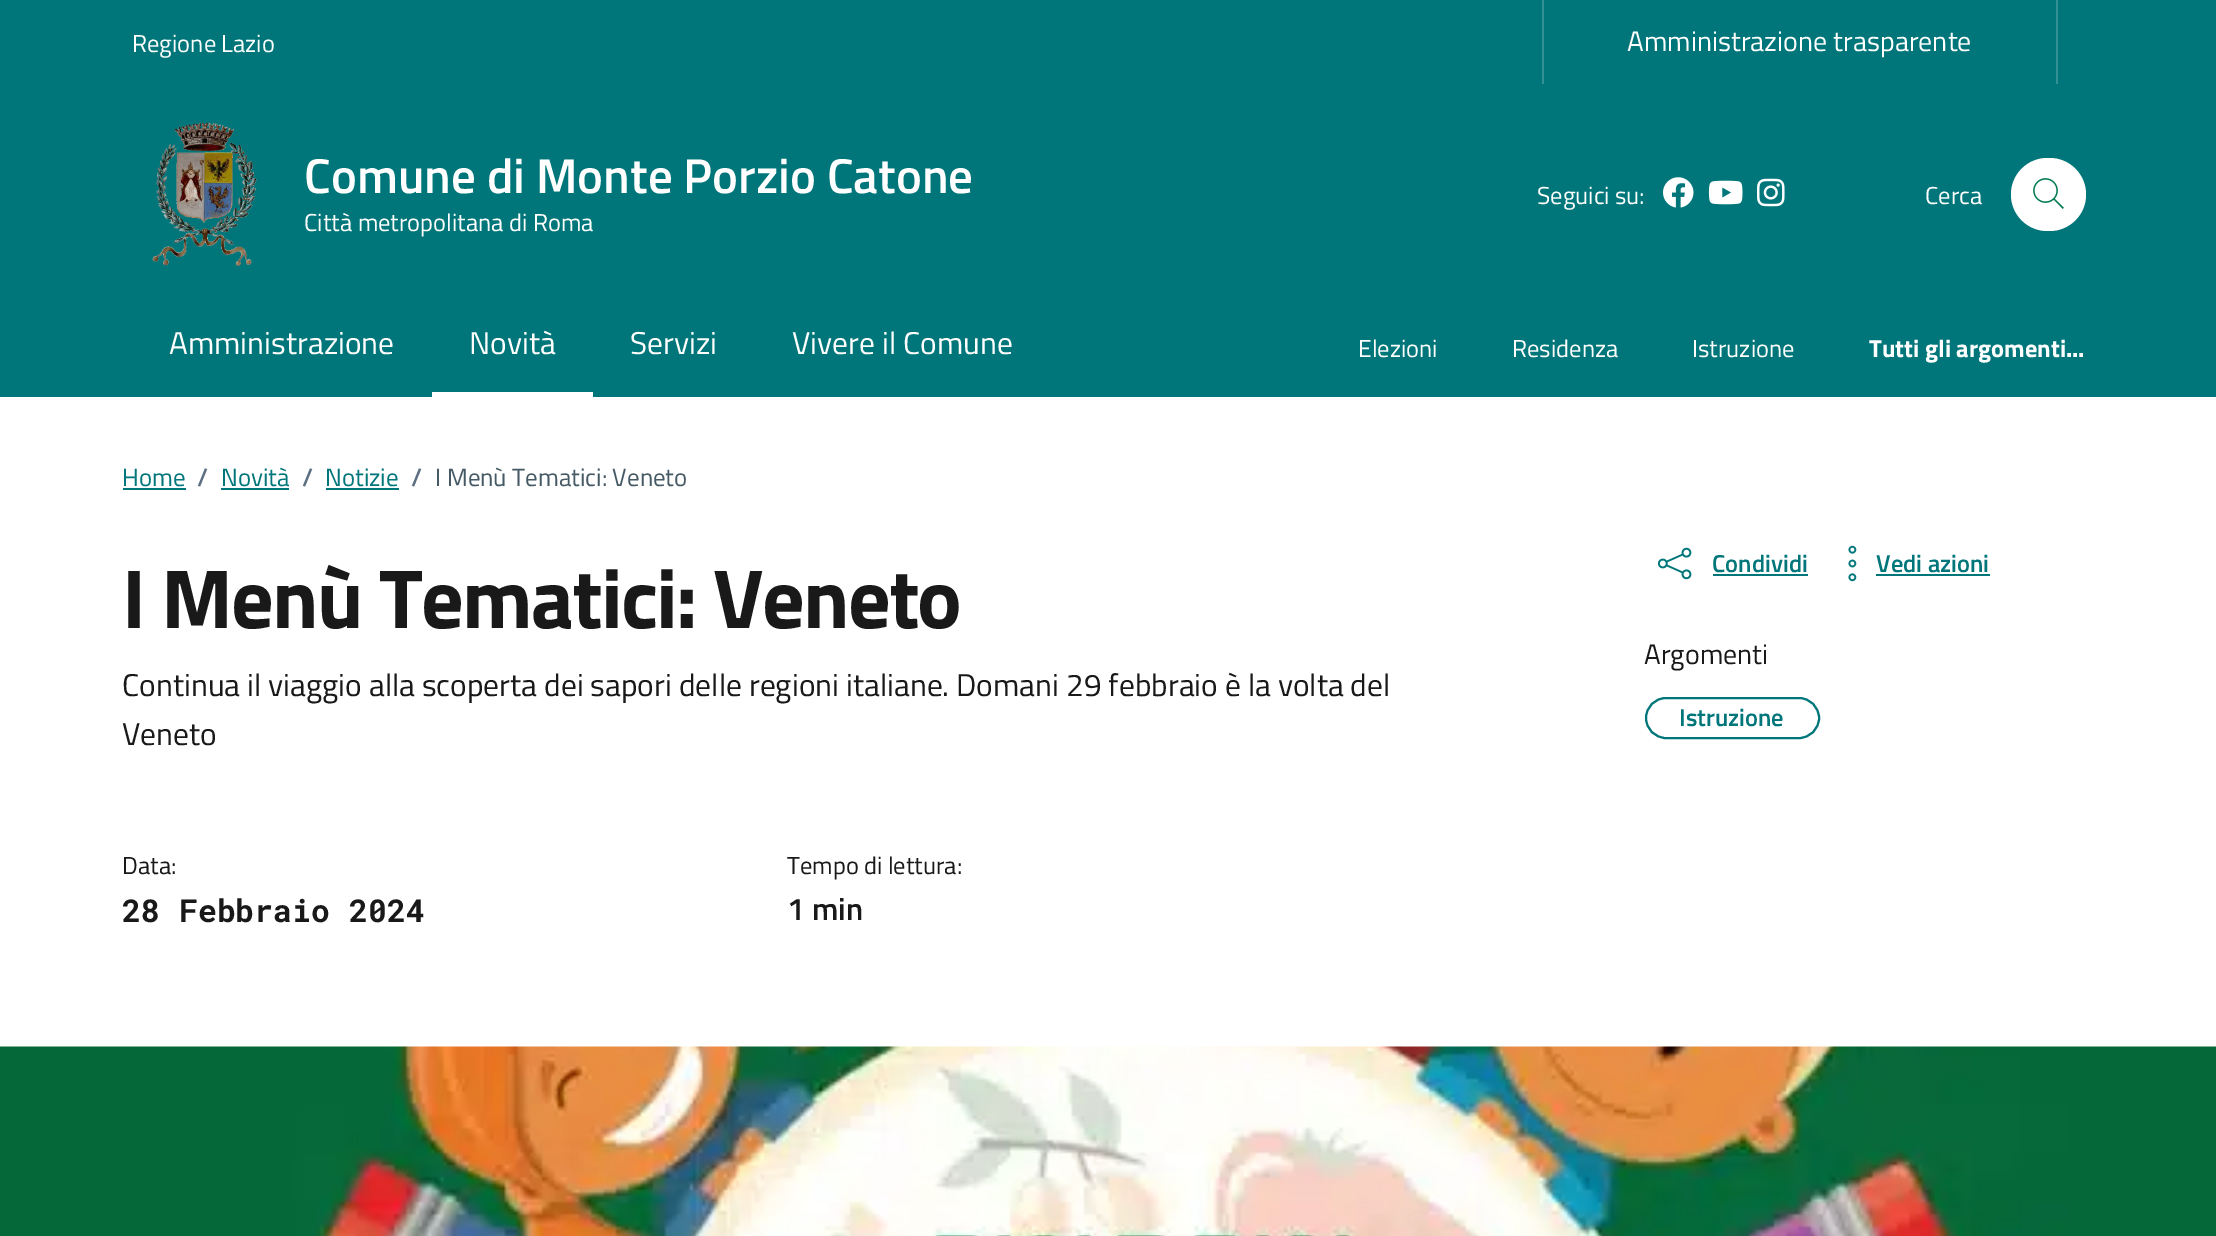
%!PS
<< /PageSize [2216 1236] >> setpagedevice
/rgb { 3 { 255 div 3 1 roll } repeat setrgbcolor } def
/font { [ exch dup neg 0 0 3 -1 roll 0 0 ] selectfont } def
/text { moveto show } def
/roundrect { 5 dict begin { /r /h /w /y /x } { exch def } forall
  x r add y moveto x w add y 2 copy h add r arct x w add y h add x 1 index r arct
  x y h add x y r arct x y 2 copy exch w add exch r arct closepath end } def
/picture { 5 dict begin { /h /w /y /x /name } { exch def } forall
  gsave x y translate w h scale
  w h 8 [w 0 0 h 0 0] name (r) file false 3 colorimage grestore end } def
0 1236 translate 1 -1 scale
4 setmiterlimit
255 255 255 rgb
0 0 2216 1236 rectfill
0 118 122 rgb
0 0 2216 397 rectfill
51 145 149 rgb
2056 0 2 84 rectfill
1542 0 2 84 rectfill
(img_01.rgb) 152 122 105 144 picture
(img_02.rgb) 1663 177 31 31 picture
(img_03.rgb) 1708 180 35 25 picture
(img_04.rgb) 1757 178 28 29 picture
255 255 255 rgb
2011 158 75 73 36.5 roundrect fill
(img_05.rgb) 2033 178 31 31 picture
432 392 161 5 rectfill
0 118 122 rgb
123 488 63 2 rectfill
221 488 68 2 rectfill
326 488 73 2 rectfill
(img_06.rgb) 1657 547 35 33 picture
1713 574 95 2 rectfill
(img_07.rgb) 1848 545 9 37 picture
1876 574 114 2 rectfill
2 setlinewidth
1646 698 173 40 20 roundrect stroke
(img_08.rgb) 0 1046 2216 190 picture
/TitilliumWeb-Regular 24.5 font
255 255 255 rgb
(Regione Lazio) 132 52 text
/TitilliumWeb-Regular 28 font
(Amministrazione trasparente) 1627 51 text
/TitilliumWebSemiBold-SemiBold 49 font
(Comune di Monte Porzio Catone) 304 193 text
/TitilliumWeb-Regular 24.5 font
(Città metropolitana di Roma) 304 231 text
(Seguici su:) 1537 204 text
(Cerca) 1925 204 text
/TitilliumWeb-Regular 31.5 font
(Amministrazione) 169 354 text
(Novità) 469 354 text
(Servizi) 630 354 text
(Vivere il Comune) 792 354 text
/TitilliumWeb-Regular 24.5 font
(Elezioni) 1358 357 text
(Residenza) 1512 357 text
(Istruzione) 1692 357 text
/TitilliumWeb-Bold 24.5 font
(Tutti gli argomenti...) 1869 357 text
/TitilliumWeb-Regular 24.9 font
0 118 122 rgb
(Home) 122 486 text
/TitilliumWebSemiBold-SemiBold 24.9 font
93 112 131 rgb
(/) 197 486 text
/TitilliumWeb-Regular 24.9 font
0 118 122 rgb
(Novità) 221 486 text
/TitilliumWebSemiBold-SemiBold 24.9 font
93 112 131 rgb
(/) 302 486 text
/TitilliumWeb-Regular 24.9 font
0 118 122 rgb
(Notizie) 325 486 text
/TitilliumWebSemiBold-SemiBold 24.9 font
93 112 131 rgb
(/) 411 486 text
/TitilliumWeb-Regular 24.9 font
69 90 100 rgb
(I Menù Tematici: Veneto) 435 486 text
/TitilliumWeb-Bold 84 font
25 25 25 rgb
122 628 moveto -1.75 0 (I Menù Tematici: Veneto) ashow
/TitilliumWeb-Regular 31.5 font
(Continua il viaggio alla scoperta dei sapori delle regioni italiane. Domani 29 febbraio è la volta del) 122 696 text
(Veneto) 122 745 text
/TitilliumWeb-Regular 24.5 font
(Data:) 122 874 text
/RobotoMono-Bold 31.5 font
(28 Febbraio 2024) 122 922 text
/TitilliumWeb-Regular 24.5 font
(Tempo di lettura:) 787 874 text
/TitilliumWebSemiBold-SemiBold 31.5 font
(1 min) 787 920 text
/TitilliumWebSemiBold-SemiBold 24.5 font
0 118 122 rgb
(Condividi) 1712 572 text
(Vedi azioni) 1876 572 text
/TitilliumWeb-Regular 28 font
25 25 25 rgb
(Argomenti) 1644 664 text
/TitilliumWebSemiBold-SemiBold 24.5 font
0 118 122 rgb
(Istruzione) 1679 726 text
showpage
